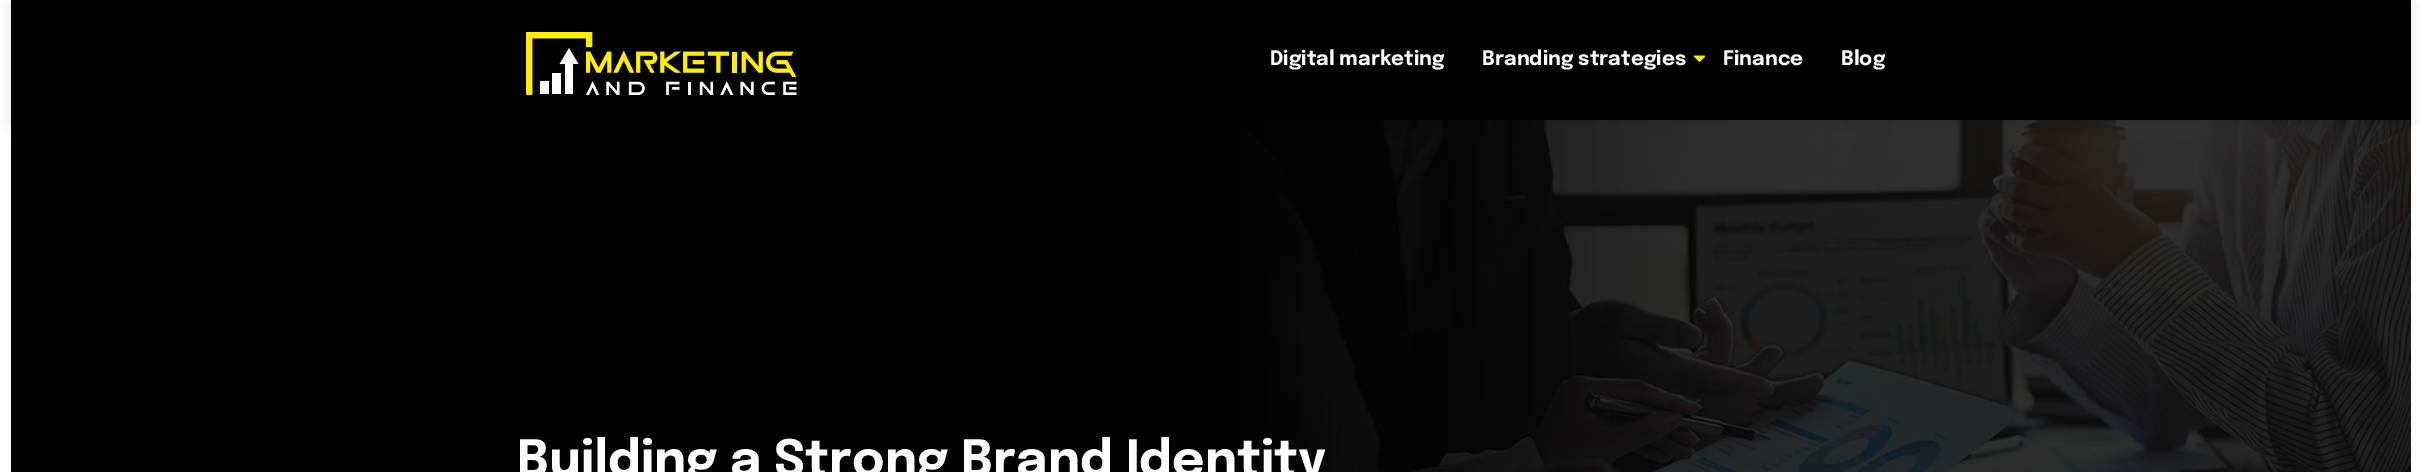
%!PS
<< /PageSize [2421 472] /PageUsesTransparency true >> setpagedevice
/rgb { 3 { 255 div 3 1 roll } repeat setrgbcolor } def
/font { [ exch dup neg 0 0 3 -1 roll 0 0 ] selectfont } def
/text { moveto show } def
/alpha { dup .setfillconstantalpha .setstrokeconstantalpha } def
/roundrect { 5 dict begin { /r /h /w /y /x } { exch def } forall
  x r add y moveto x w add y 2 copy h add r arct x w add y h add x 1 index r arct
  x y h add x y r arct x y 2 copy exch w add exch r arct closepath end } def
/shadow { 12 dict begin { /a /b /q /h /w /y /x } { exch def } forall gsave /was 0 def
  9 -2 -9 { dup b mul 4 div /e exch def 1 sub .425 mul 2.718 exch exp 1 add a .99 .min exch div /now exch def
    1 1 now sub 1 was sub div sub alpha /was now def
    w h .min e 2 mul add 0 gt { x e sub y e sub w e 2 mul add h e 2 mul add
      q e add b .6 mul add w h .min 2 div e add .min 0 .max roundrect fill } if } for grestore end } def
/picture { 5 dict begin { /h /w /y /x /name } { exch def } forall
  gsave x y translate w h scale
  w h 8 [w 0 0 h 0 0] name (r) file false 3 colorimage grestore end } def
0 .pushpdf14devicefilter
0 472 translate 1 -1 scale
4 setmiterlimit
255 255 255 rgb
0 0 2421 472 rectfill
0 0 0 rgb
11 120 2400 352 rectfill
(img_03.rgb) 1243 120 1169 352 picture
11 3 2400 120 0 8 0.1 shadow
11 0 2400 120 rectfill
(img_01.rgb) 526 32 271 63 picture
(img_02.rgb) 1693 55 13 7 picture
/Epilogue-Bold 20 font
255 255 255 rgb
(Digital marketing) 1270 65 text
(Branding strategies) 1482 65 text
(Finance) 1723 65 text
(Blog) 1841 65 text
/Epilogue-Bold 50 font
(Building a Strong Brand Identity) 517 476 text
.poppdf14devicefilter showpage
